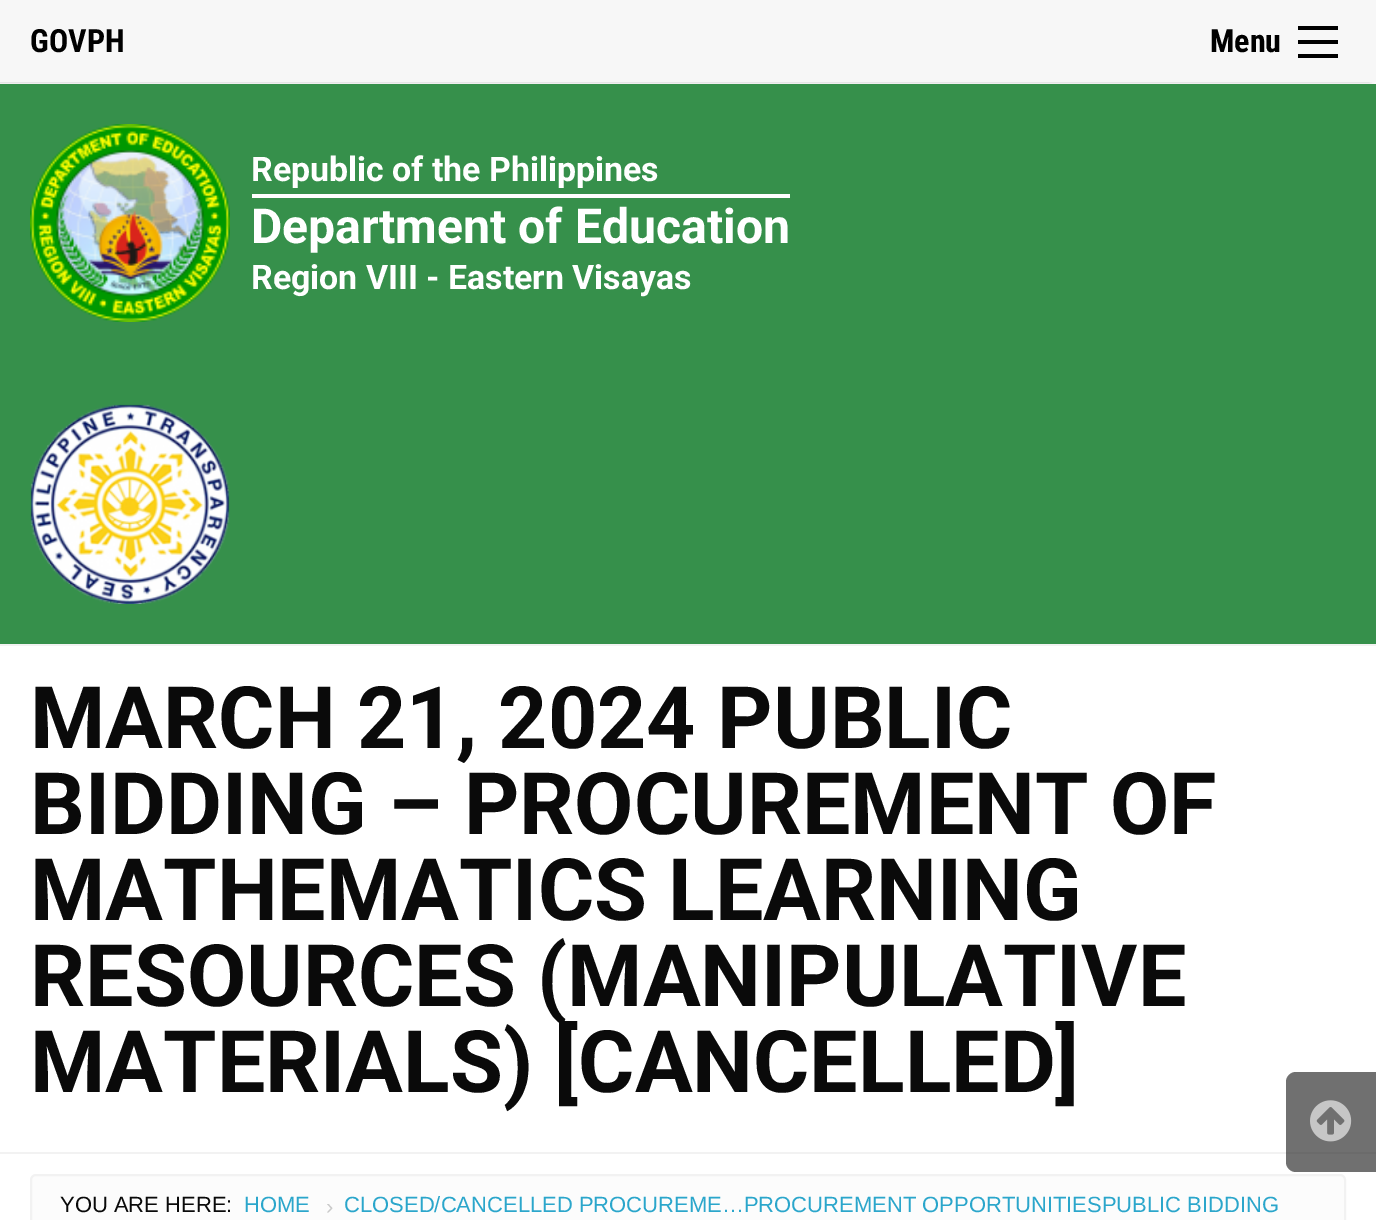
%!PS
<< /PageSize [1376 1220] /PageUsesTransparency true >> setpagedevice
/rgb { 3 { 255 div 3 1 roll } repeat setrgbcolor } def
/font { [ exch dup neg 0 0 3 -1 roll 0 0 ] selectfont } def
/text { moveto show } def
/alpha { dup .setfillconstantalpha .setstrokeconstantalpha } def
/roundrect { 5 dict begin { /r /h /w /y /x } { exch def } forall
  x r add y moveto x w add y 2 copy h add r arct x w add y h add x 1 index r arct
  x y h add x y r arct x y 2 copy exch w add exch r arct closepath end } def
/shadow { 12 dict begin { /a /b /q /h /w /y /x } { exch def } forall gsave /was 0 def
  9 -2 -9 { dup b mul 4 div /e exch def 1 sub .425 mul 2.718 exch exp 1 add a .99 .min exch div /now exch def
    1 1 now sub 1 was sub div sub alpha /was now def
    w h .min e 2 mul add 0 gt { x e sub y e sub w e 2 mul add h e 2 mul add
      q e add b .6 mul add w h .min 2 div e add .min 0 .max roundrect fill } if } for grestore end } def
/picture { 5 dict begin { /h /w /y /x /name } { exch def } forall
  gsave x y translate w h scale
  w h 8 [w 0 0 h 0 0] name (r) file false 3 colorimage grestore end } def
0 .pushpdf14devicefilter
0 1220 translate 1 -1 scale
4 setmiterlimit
255 255 255 rgb
0 0 1376 1220 rectfill
0 0 0 rgb
-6 0 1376 82 0 4 0.2 shadow
247 247 247 rgb
0 0 1376 82 rectfill
0 0 0 rgb
1298 54 40 4 rectfill
1298 40 40 4 rectfill
1298 26 40 4 rectfill
54 144 75 rgb
0 84 1376 560 rectfill
242 242 242 rgb
0 644 1376 2 rectfill
(img_01.rgb) 30 124 200 198 picture
255 255 255 rgb
252 194 538 4 rectfill
(img_02.rgb) 30 404 200 200 picture
242 242 242 rgb
0 1152 1376 2 rectfill
252 252 252 rgb
31 1175 1314 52 5 roundrect gsave fill grestore
242 242 242 rgb
2 setlinewidth
stroke
0.6 alpha
17 17 17 rgb
1296 1072 moveto 80 0 rlineto 0 100 rlineto -80 0 rlineto -5.5 0 -10 -4.5 -10 -10 rcurveto 0 -80 rlineto 0 -5.5 4.5 -10 10 -10 rcurveto closepath fill
1 alpha
(img_03.rgb) 1310 1100 42 42 picture
/RobotoCondensed-Bold 32 font
0 0 0 rgb
(GOVPH) 30 52 text
(Menu) 1210 52 text
/Roboto-Bold 33.9 font
255 255 255 rgb
(Republic of the Philippines) 251 181 text
/Roboto-Bold 48.2 font
(Department of Education) 251 243 text
/Roboto-Bold 33.9 font
(Region VIII - Eastern Visayas) 251 289 text
/Roboto-Bold 86.1 font
10 10 10 rgb
(MARCH 21, 2024 PUBLIC) 30 748 text
(BIDDING – PROCUREMENT OF) 30 834 text
(MATHEMATICS LEARNING) 30 920 text
(RESOURCES \(MANIPULATIVE) 30 1006 text
(MATERIALS\) [CANCELLED]) 30 1092 text
/LiberationSans-Regular 22 font
(YOU ARE HERE:) 60 1212 text
43 166 203 rgb
(HOME) 244 1212 text
202 202 202 rgb
(›) 326 1214 text
43 166 203 rgb
(CLOSED/CANCELLED PROCUREME…PROCUREMENT OPPORTUNITIESPUBLIC BIDDING) 344 1212 text
.poppdf14devicefilter showpage
